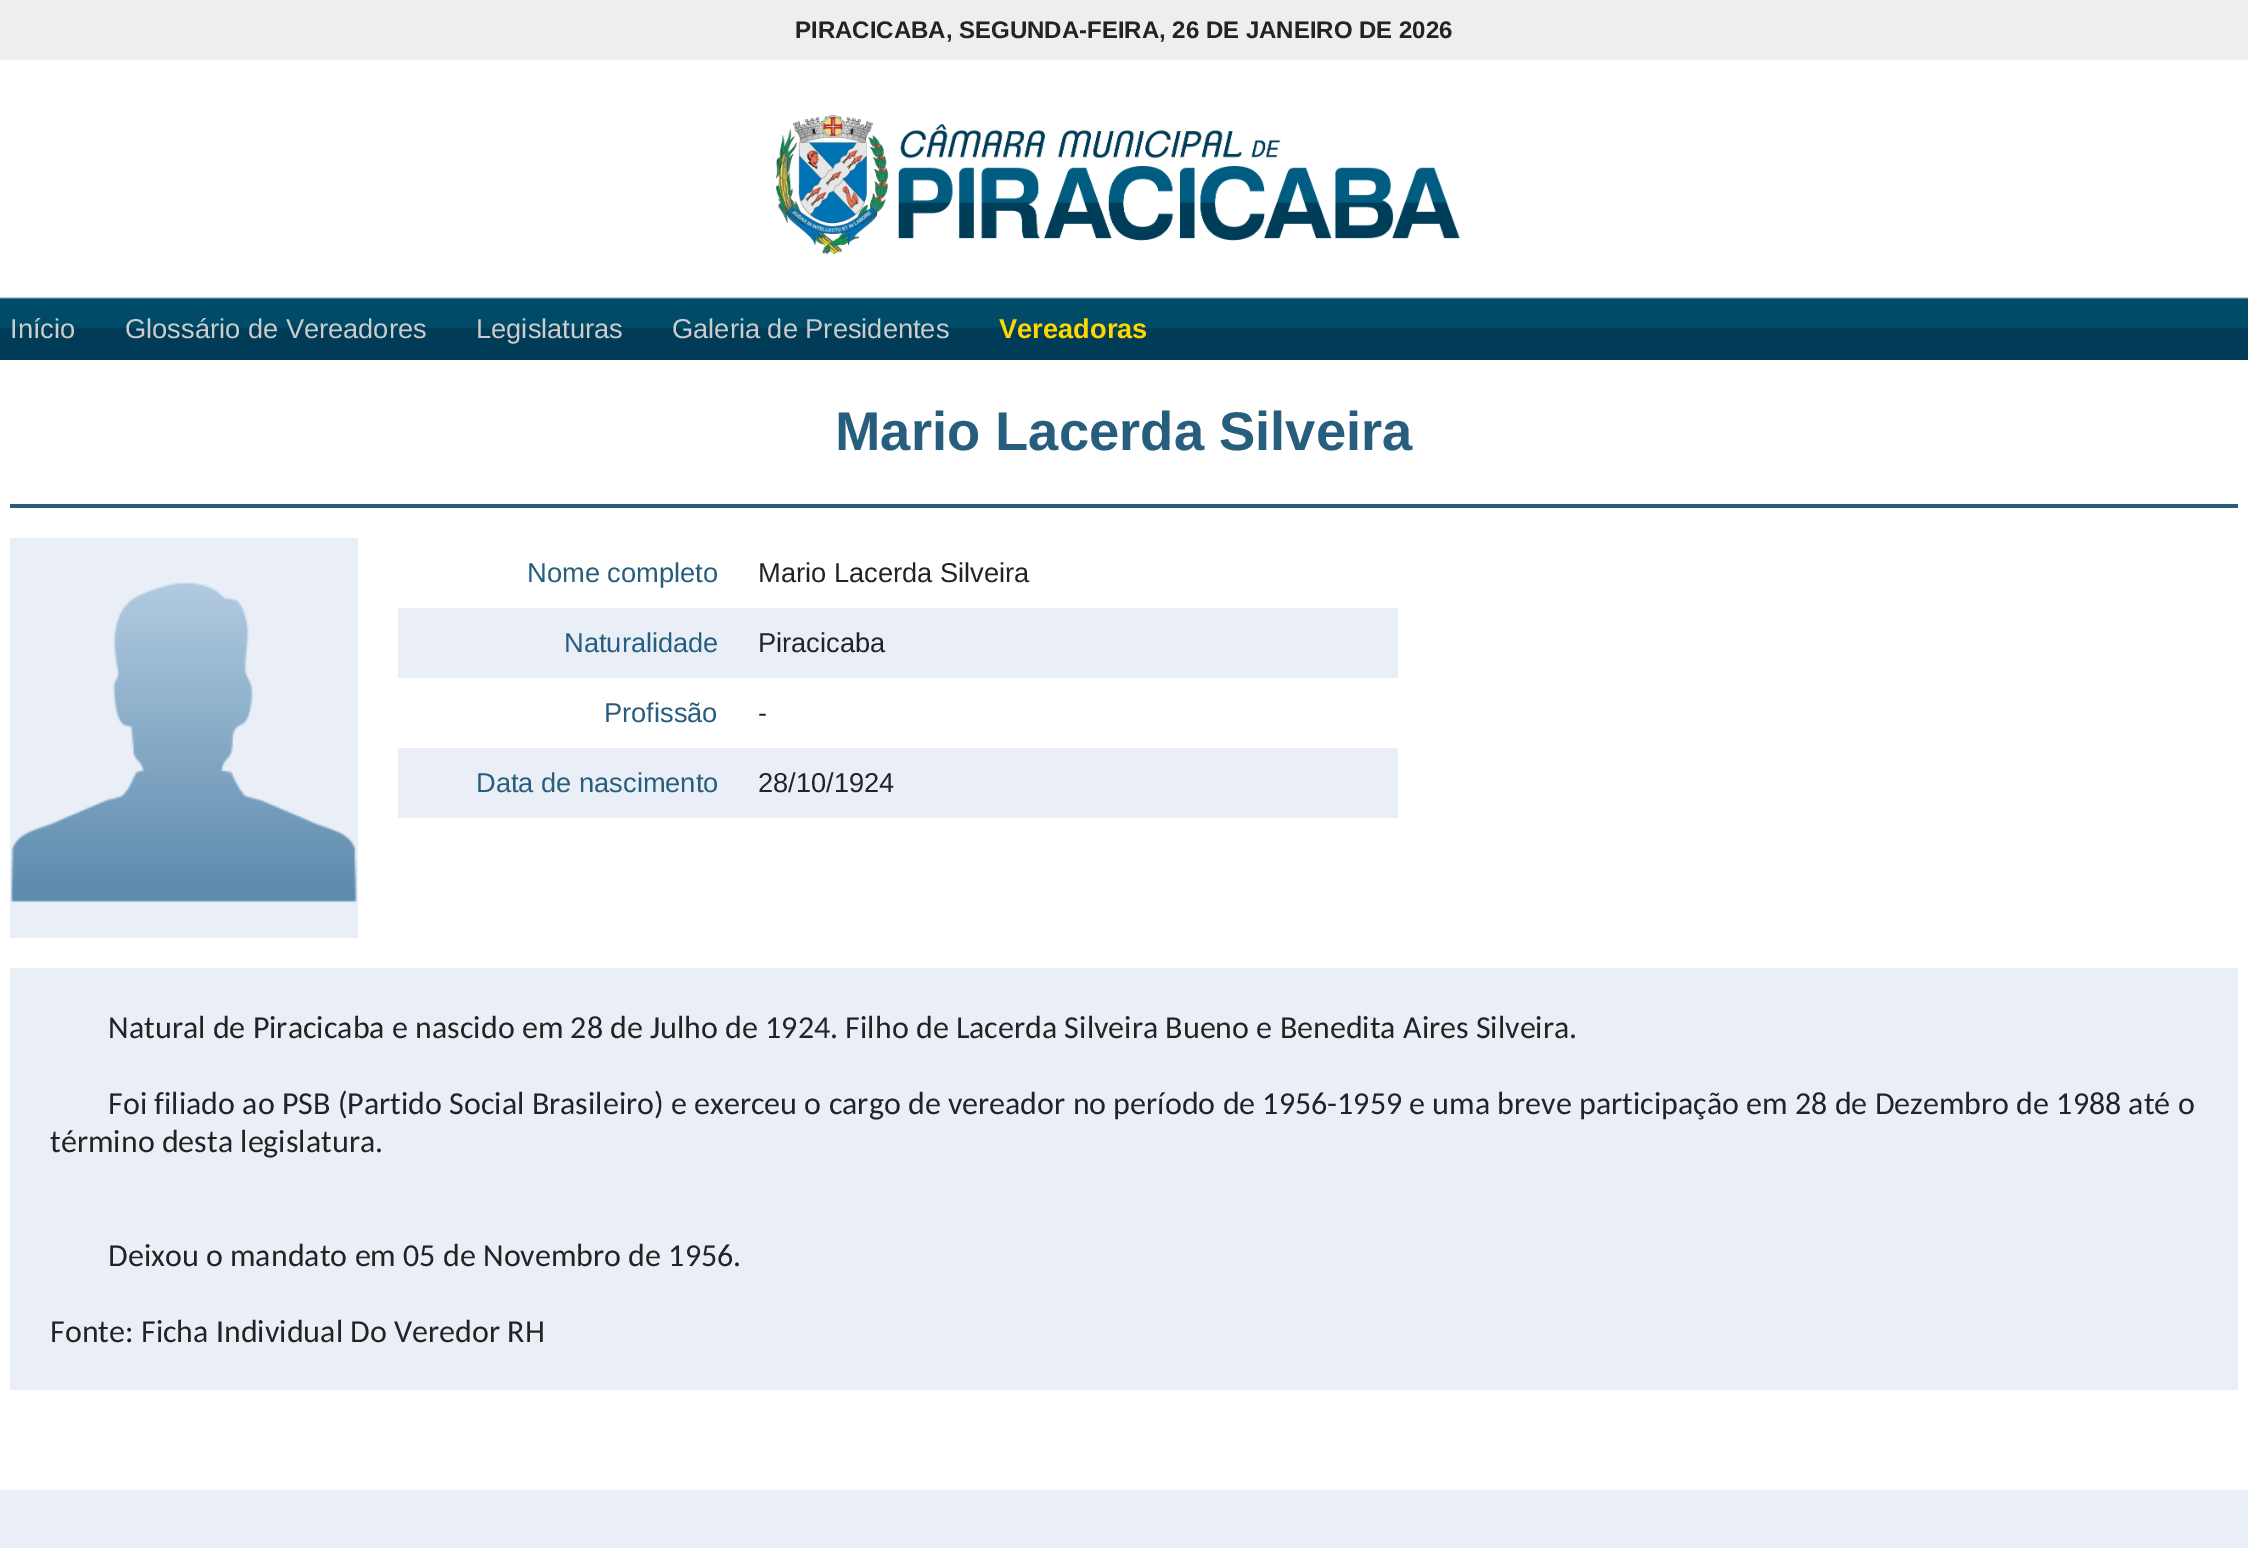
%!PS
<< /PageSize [2248 1548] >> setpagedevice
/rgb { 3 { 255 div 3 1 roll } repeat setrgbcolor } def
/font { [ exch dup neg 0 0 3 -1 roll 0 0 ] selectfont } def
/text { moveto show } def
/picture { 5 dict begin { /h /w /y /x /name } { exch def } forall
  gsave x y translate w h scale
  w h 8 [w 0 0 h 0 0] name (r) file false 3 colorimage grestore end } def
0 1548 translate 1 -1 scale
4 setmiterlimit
255 255 255 rgb
0 0 2248 1548 rectfill
(img_01.rgb) 0 0 2248 360 picture
(img_02.rgb) 775 115 685 140 picture
39 94 126 rgb
10 504 2228 4 rectfill
234 239 247 rgb
10 538 348 400 rectfill
(img_03.rgb) 10 582 347 321 picture
398 608 1000 70 rectfill
398 748 1000 70 rectfill
10 968 2228 422 rectfill
0 1490 2248 58 rectfill
/LiberationSans-Bold 24 font
35 35 35 rgb
(PIRACICABA, SEGUNDA-FEIRA, 26 DE JANEIRO DE 2026) 795 38 text
/LiberationSans-Regular 27.25 font
204 204 204 rgb
(Início) 10 338 text
(Glossário de Vereadores) 125 338 text
(Legislaturas) 476 338 text
(Galeria de Presidentes) 672 338 text
/LiberationSans-Bold 27.25 font
255 216 0 rgb
(Vereadoras) 999 338 text
/LiberationSans-Bold 54.4 font
39 94 126 rgb
(Mario Lacerda Silveira) 835 450 text
/LiberationSans-Regular 27.25 font
(Nome completo) 527 582 text
35 35 35 rgb
(Mario Lacerda Silveira) 758 582 text
39 94 126 rgb
(Naturalidade) 564 652 text
35 35 35 rgb
(Piracicaba) 758 652 text
39 94 126 rgb
(Profissão) 604 722 text
35 35 35 rgb
(-) 758 722 text
39 94 126 rgb
(Data de nascimento) 476 792 text
35 35 35 rgb
(28/10/1924) 758 792 text
/Carlito-Regular 32 font
(Natural de Piracicaba e nascido em 28 de Julho de 1924. Filho de Lacerda Silveira Bueno e Benedita Aires Silveira.) 108 1038 text
(Foi filiado ao PSB \(Partido Social Brasileiro\) e exerceu o cargo de vereador no período de 1956-1959 e uma breve participação em 28 de Dezembro de 1988 até o) 108 1114 text
(término desta legislatura.) 50 1152 text
(Deixou o mandato em 05 de Novembro de 1956.) 108 1266 text
(Fonte: Ficha Individual Do Veredor RH) 50 1342 text
showpage
